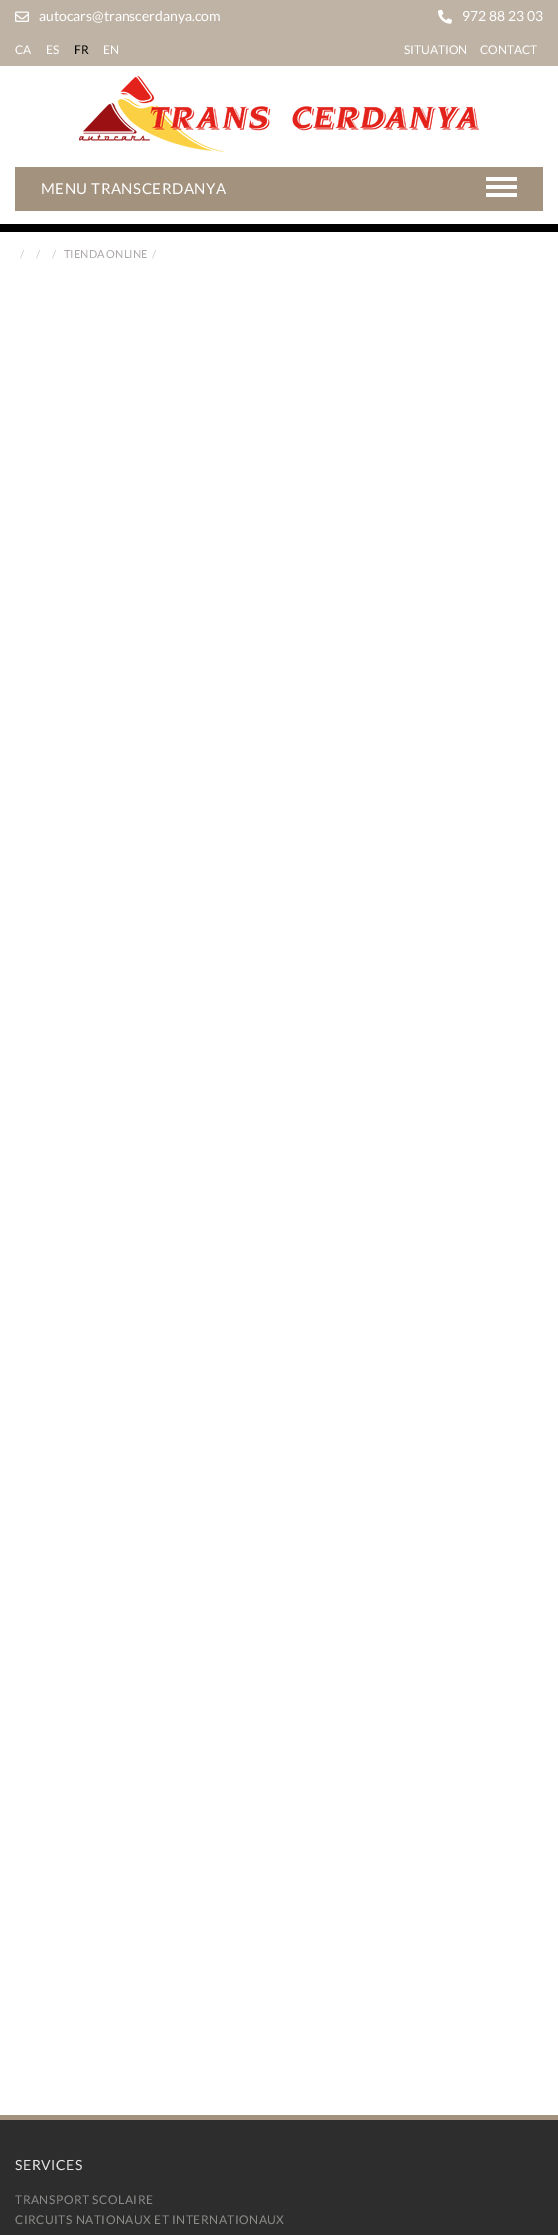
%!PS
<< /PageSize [558 2235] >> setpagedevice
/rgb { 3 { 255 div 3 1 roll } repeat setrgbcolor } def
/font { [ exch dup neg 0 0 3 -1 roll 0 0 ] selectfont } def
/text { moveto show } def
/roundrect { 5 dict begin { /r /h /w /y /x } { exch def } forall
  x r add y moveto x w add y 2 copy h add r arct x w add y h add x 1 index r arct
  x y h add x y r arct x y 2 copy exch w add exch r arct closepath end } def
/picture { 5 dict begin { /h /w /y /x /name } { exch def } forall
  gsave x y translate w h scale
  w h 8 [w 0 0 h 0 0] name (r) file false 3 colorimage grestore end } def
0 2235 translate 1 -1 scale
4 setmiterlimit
255 255 255 rgb
0 0 558 2235 rectfill
191 179 165 rgb
0 0 558 66 rectfill
(img_01.rgb) 15 11 14 11 picture
(img_02.rgb) 438 9 14 15 picture
(img_03.rgb) 79 76 400 76 picture
0 0 0 rgb
0 224 558 8 rectfill
163 146 126 rgb
15 167 528 44 rectfill
255 255 255 rgb
486 177 31 4 1 roundrect fill
486 185 31 4 1 roundrect fill
486 193 31 4 1 roundrect fill
45 45 45 rgb
0 2120 558 115 rectfill
163 146 126 rgb
0 2115 558 5 rectfill
/Lato-Regular 14 font
255 255 255 rgb
(autocars@transcerdanya.com) 39 21 text
(972 88 23 03) 462 21 text
/Lato-Regular 12 font
(CA) 15 54 text
(ES) 46 54 text
0 0 0 rgb
(FR) 74 54 text
255 255 255 rgb
(EN) 103 54 text
(SITUATION) 404 54 text
(CONTACT) 480 54 text
/Lato-Regular 15 font
41 194 moveto 0.5 0 (MENU TRANSCERDANYA) ashow
/Lato-Regular 11 font
204 204 204 rgb
(/) 20 258 text
(/) 36 258 text
(/) 52 258 text
172 167 167 rgb
(TIENDA ONLINE) 64 258 text
204 204 204 rgb
(/) 152 258 text
/Lato-Regular 14 font
229 229 229 rgb
15 2170 moveto 0.5 0 (SERVICES) ashow
/Lato-Regular 12 font
140 139 136 rgb
15 2204 moveto 0.5 0 (TRANSPORT SCOLAIRE) ashow
15 2224 moveto 0.5 0 (CIRCUITS NATIONAUX ET INTERNATIONAUX) ashow
showpage
